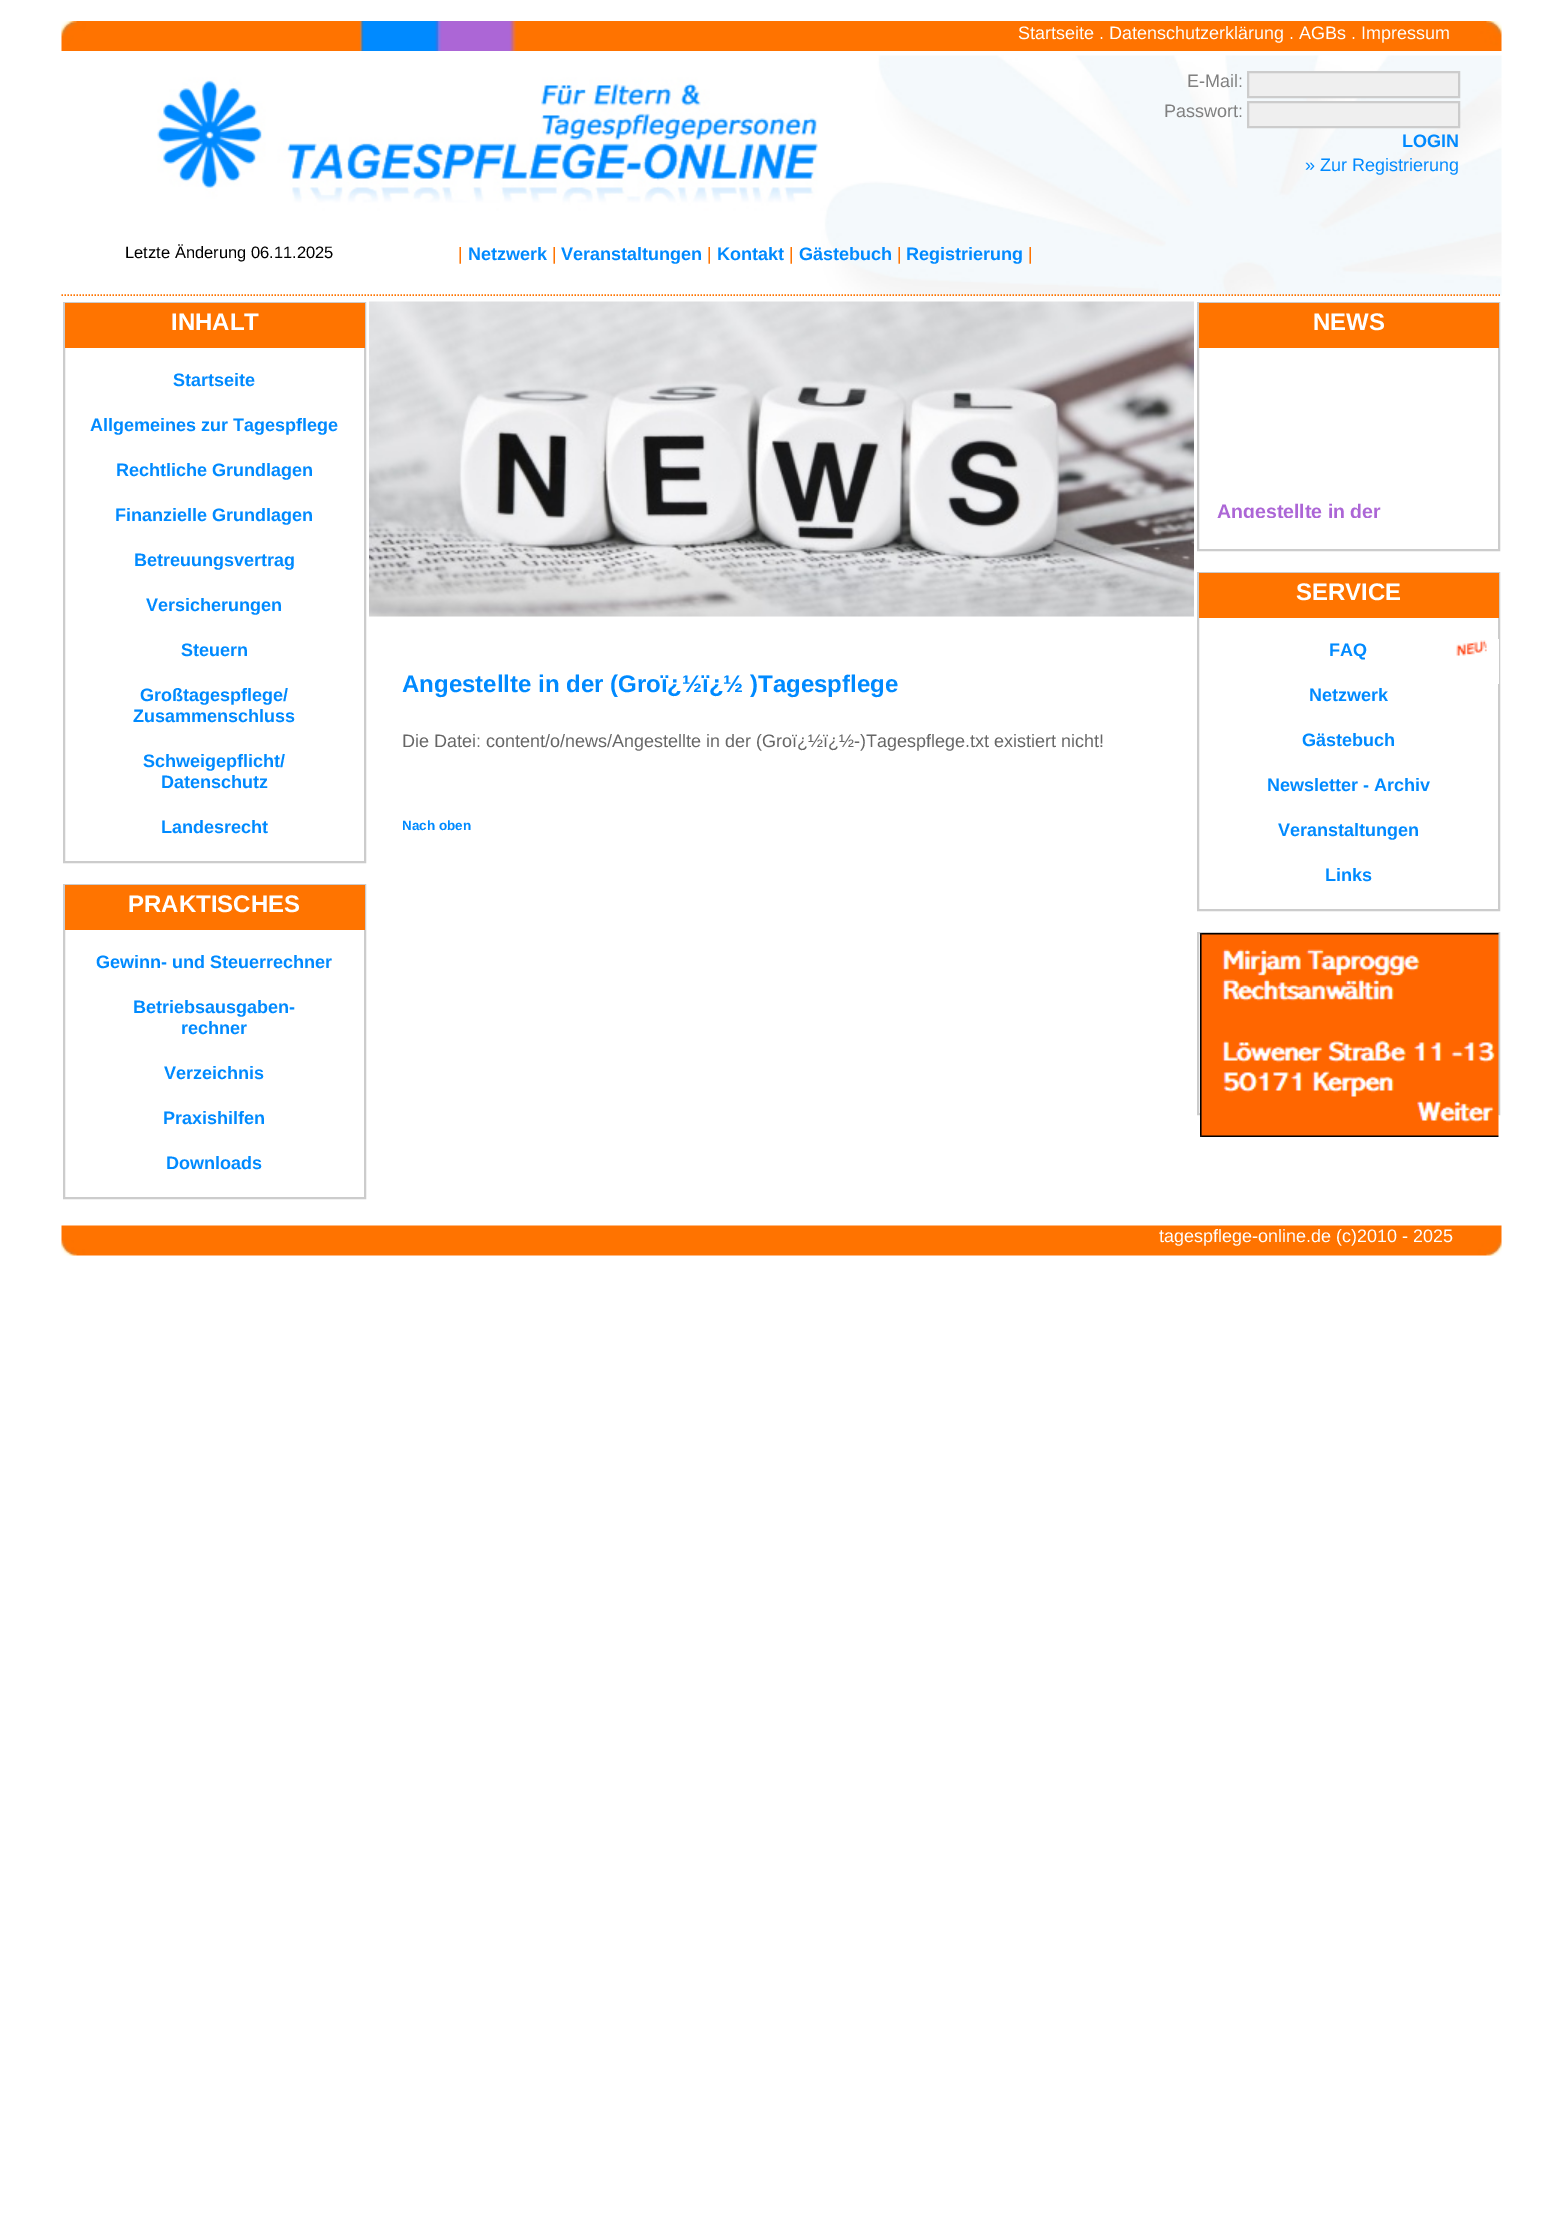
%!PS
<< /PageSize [1553 2235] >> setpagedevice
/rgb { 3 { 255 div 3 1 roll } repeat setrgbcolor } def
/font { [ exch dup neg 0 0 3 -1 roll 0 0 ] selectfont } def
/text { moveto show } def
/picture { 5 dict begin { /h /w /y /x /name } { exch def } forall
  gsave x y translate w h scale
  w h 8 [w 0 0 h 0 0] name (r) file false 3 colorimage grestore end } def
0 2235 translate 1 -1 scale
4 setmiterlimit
255 255 255 rgb
0 0 1553 2235 rectfill
(img_01.rgb) 61 21 1441 30 picture
(img_02.rgb) 157 55 1345 241 picture
255 116 0 rgb
1.5 setlinewidth
[1.5 1.5] 0 setdash
61.5 295 moveto 1440 0 rlineto stroke
239 239 239 rgb
1248 72 moveto 211 0 rlineto 0 25 rlineto -211 0 rlineto closepath gsave fill grestore
204 204 204 rgb
2 setlinewidth
[] 0 setdash
stroke
239 239 239 rgb
1248 102 moveto 211 0 rlineto 0 25 rlineto -211 0 rlineto closepath gsave fill grestore
204 204 204 rgb
stroke
64 303 301 559 rectstroke
255 116 0 rgb
65 303 300 45 rectfill
204 204 204 rgb
64 885 301 313 rectstroke
255 116 0 rgb
65 885 300 45 rectfill
(img_03.rgb) 369 301 825 316 picture
204 204 204 rgb
1198 303 301 247 rectstroke
255 116 0 rgb
1199 303 300 45 rectfill
204 204 204 rgb
1198 573 301 337 rectstroke
255 116 0 rgb
1199 573 300 45 rectfill
255 255 255 rgb
1498 639 1 45 rectfill
(img_04.rgb) 1456 640 31 16 picture
204 204 204 rgb
1198 933 301 181 rectstroke
(img_05.rgb) 1200 933 299 204 picture
(img_06.rgb) 61 1225 1441 31 picture
/LiberationSans-Regular 18 font
255 255 255 rgb
(Startseite . Datenschutzerklärung . AGBs . Impressum) 1018 39 text
128 128 128 rgb
(E-Mail:) 1187 87 text
(Passwort:) 1164 117 text
/LiberationSans-Bold 18 font
0 138 255 rgb
(LOGIN) 1402 147 text
/LiberationSans-Regular 18 font
(» Zur Registrierung) 1305 171 text
/LiberationSans-Regular 16.5 font
0 0 0 rgb
(Letzte Änderung 06.11.2025) 125 258 text
/LiberationSans-Regular 18 font
255 116 0 rgb
(|) 458 260 text
/LiberationSans-Bold 18 font
0 138 255 rgb
(Netzwerk) 468 260 text
/LiberationSans-Regular 18 font
255 116 0 rgb
(|) 552 260 text
/LiberationSans-Bold 18 font
0 138 255 rgb
(Veranstaltungen) 561 260 text
/LiberationSans-Regular 18 font
255 116 0 rgb
(|) 707 260 text
/LiberationSans-Bold 18 font
0 138 255 rgb
(Kontakt) 717 260 text
/LiberationSans-Regular 18 font
255 116 0 rgb
(|) 789 260 text
/LiberationSans-Bold 18 font
0 138 255 rgb
(Gästebuch) 799 260 text
/LiberationSans-Regular 18 font
255 116 0 rgb
(|) 897 260 text
/LiberationSans-Bold 18 font
0 138 255 rgb
(Registrierung) 906 260 text
/LiberationSans-Regular 18 font
255 116 0 rgb
(|) 1028 260 text
/LiberationSans-Bold 24 font
255 255 255 rgb
(INHALT) 171 330 text
/LiberationSans-Bold 18 font
0 138 255 rgb
(Startseite) 173 386 text
(Allgemeines zur Tagespflege) 90 431 text
(Rechtliche Grundlagen) 116 476 text
(Finanzielle Grundlagen) 115 521 text
(Betreuungsvertrag) 134 566 text
(Versicherungen) 146 611 text
(Steuern) 181 656 text
(Großtagespflege/) 140 701 text
(Zusammenschluss) 133 722 text
(Schweigepflicht/) 143 767 text
(Datenschutz) 161 788 text
(Landesrecht) 161 833 text
/LiberationSans-Bold 24 font
255 255 255 rgb
(PRAKTISCHES) 128 912 text
/LiberationSans-Bold 18 font
0 138 255 rgb
(Gewinn- und Steuerrechner) 96 968 text
(Betriebsausgaben-) 133 1013 text
(rechner) 181 1034 text
(Verzeichnis) 164 1079 text
(Praxishilfen) 163 1124 text
(Downloads) 166 1169 text
/LiberationSans-Bold 24 font
(Angestellte in der \(Groï¿½ï¿½ \)Tagespflege) 402 692 text
/LiberationSans-Regular 18 font
102 102 102 rgb
(Die Datei: content/o/news/Angestellte in der \(Groï¿½ï¿½-\)Tagespflege.txt existiert nicht!) 402 747 text
/LiberationSans-Bold 13.5 font
0 138 255 rgb
(Nach oben) 402 830 text
/LiberationSans-Bold 24 font
255 255 255 rgb
(NEWS) 1313 330 text
gsave
1199 369 300 149 rectclip
/LiberationSans-Bold 19.5 font
172 102 214 rgb
(Angestellte in der) 1217 518 text
grestore
(SERVICE) 1296 600 text
/LiberationSans-Bold 18 font
0 138 255 rgb
(FAQ) 1329 656 text
(Netzwerk) 1309 701 text
(Gästebuch) 1302 746 text
(Newsletter - Archiv) 1267 791 text
(Veranstaltungen) 1278 836 text
(Links) 1325 881 text
/LiberationSans-Regular 18 font
255 255 255 rgb
(tagespflege-online.de \(c\)2010 - 2025) 1159 1242 text
showpage
